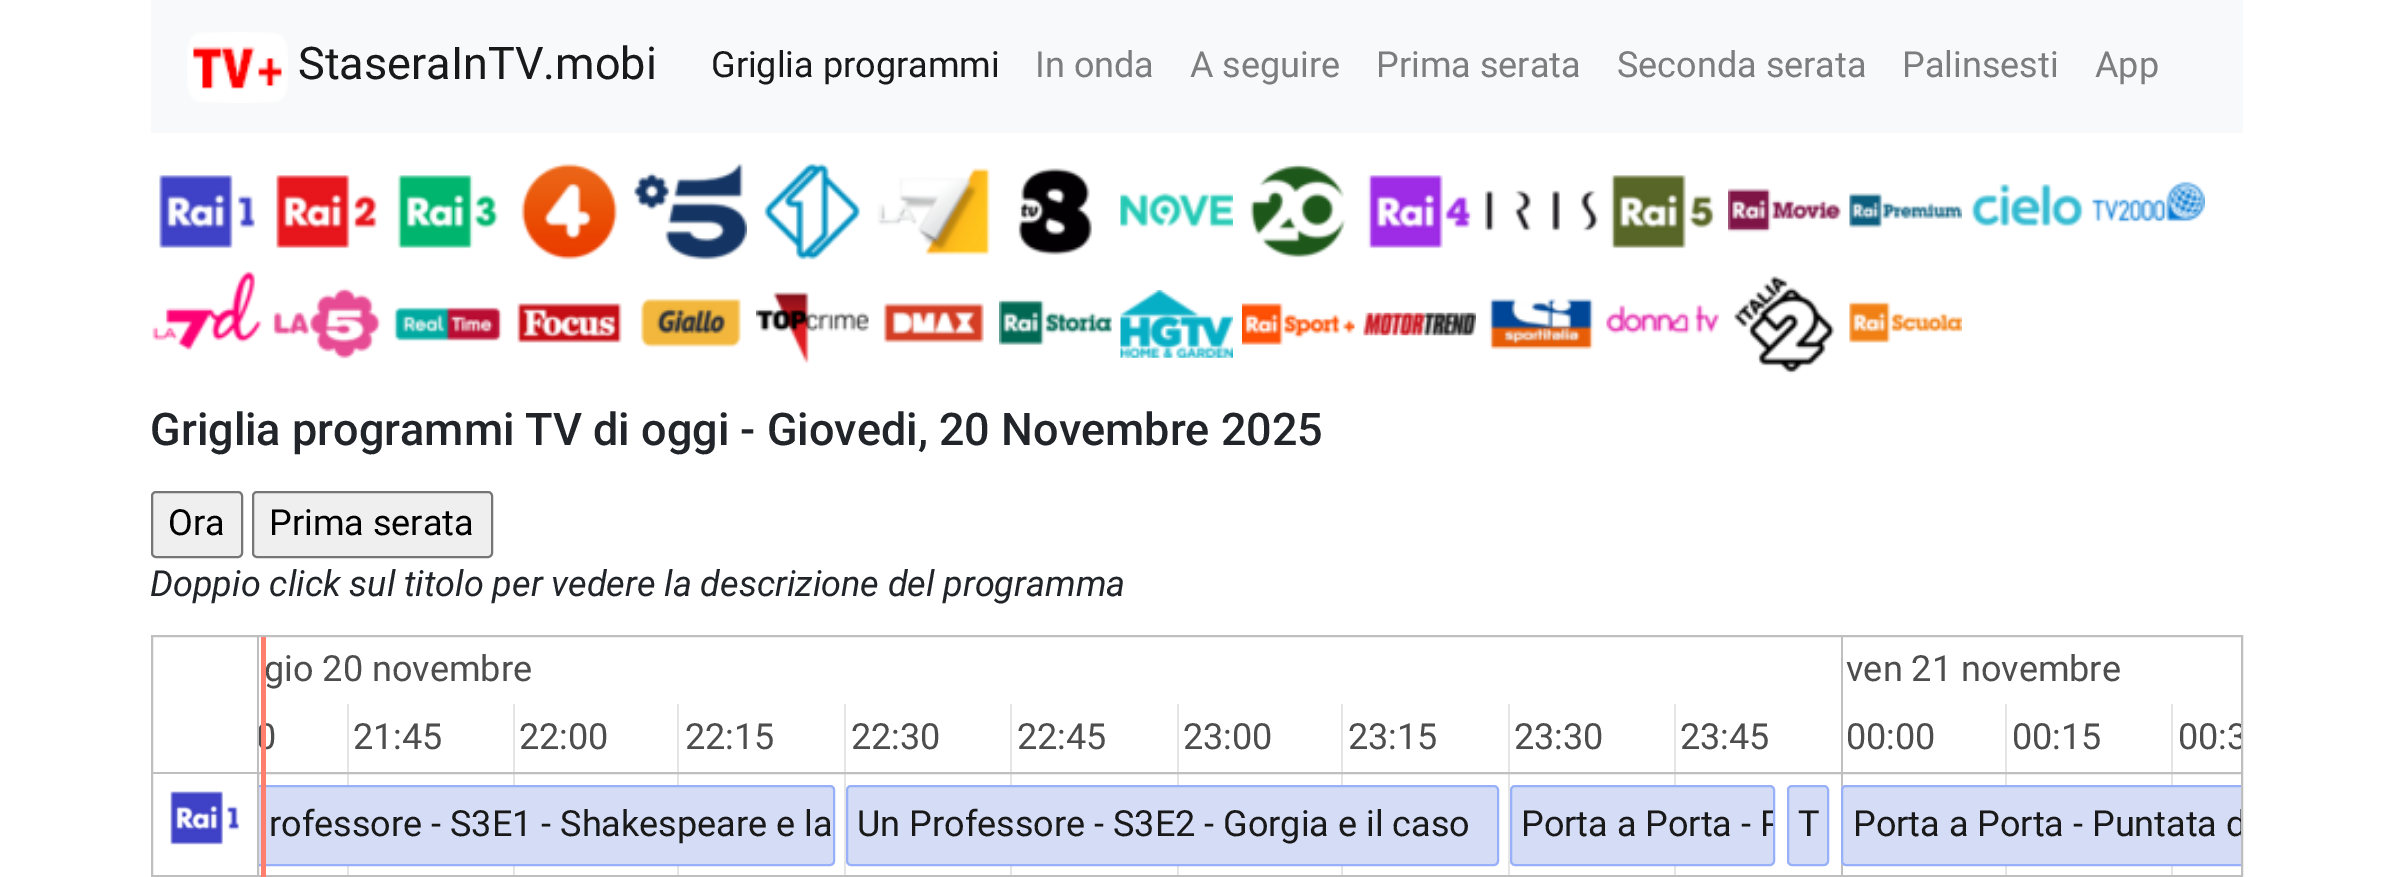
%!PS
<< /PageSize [2390 877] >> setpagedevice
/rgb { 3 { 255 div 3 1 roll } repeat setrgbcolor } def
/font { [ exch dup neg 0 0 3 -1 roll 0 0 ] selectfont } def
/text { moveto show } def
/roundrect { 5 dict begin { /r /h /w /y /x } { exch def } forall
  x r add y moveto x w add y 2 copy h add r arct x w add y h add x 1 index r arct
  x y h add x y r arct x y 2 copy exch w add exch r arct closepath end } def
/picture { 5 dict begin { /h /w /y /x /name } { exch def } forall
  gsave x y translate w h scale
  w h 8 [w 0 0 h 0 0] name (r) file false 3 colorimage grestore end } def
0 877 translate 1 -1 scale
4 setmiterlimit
255 255 255 rgb
0 0 2390 877 rectfill
248 249 250 rgb
151 0 2092 133 rectfill
(img_01.rgb) 187 32 101 71 picture
(img_02.rgb) 159 175 96 74 picture
(img_03.rgb) 276 175 101 74 picture
(img_04.rgb) 397 175 101 74 picture
(img_05.rgb) 521 163 97 97 picture
(img_06.rgb) 634 163 113 97 picture
(img_07.rgb) 764 163 97 97 picture
(img_08.rgb) 877 168 113 87 picture
(img_09.rgb) 1018 168 74 87 picture
(img_10.rgb) 1120 193 113 35 picture
(img_11.rgb) 1250 164 96 94 picture
(img_12.rgb) 1367 175 105 74 picture
(img_13.rgb) 1485 190 113 42 picture
(img_14.rgb) 1610 175 105 74 picture
(img_15.rgb) 1728 188 113 45 picture
(img_16.rgb) 1849 193 113 35 picture
(img_17.rgb) 1971 184 113 44 picture
(img_18.rgb) 2092 181 113 42 picture
(img_19.rgb) 152 271 110 80 picture
(img_20.rgb) 272 287 109 72 picture
(img_21.rgb) 393 307 109 35 picture
(img_22.rgb) 517 303 105 40 picture
(img_23.rgb) 640 298 101 50 picture
(img_24.rgb) 756 292 113 71 picture
(img_25.rgb) 883 303 101 40 picture
(img_26.rgb) 999 299 113 46 picture
(img_27.rgb) 1120 290 113 68 picture
(img_28.rgb) 1242 303 113 42 picture
(img_29.rgb) 1363 312 113 24 picture
(img_30.rgb) 1489 298 105 52 picture
(img_31.rgb) 1606 304 113 30 picture
(img_32.rgb) 1734 276 101 98 picture
(img_33.rgb) 1849 301 113 42 picture
239 239 239 rgb
152 492 90 65 4 roundrect gsave fill grestore
118 118 118 rgb
2 setlinewidth
stroke
239 239 239 rgb
253 492 239 65 4 roundrect gsave fill grestore
118 118 118 rgb
stroke
191 191 191 rgb
152 636 2090 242 rectstroke
229 229 229 rgb
347 704 2 173 rectfill
513 704 2 173 rectfill
677 704 2 173 rectfill
844 704 2 173 rectfill
1010 704 2 173 rectfill
1177 704 2 173 rectfill
1341 704 2 173 rectfill
1508 704 2 173 rectfill
1674 704 2 173 rectfill
191 191 191 rgb
1841 637 2 240 rectfill
229 229 229 rgb
2005 704 2 173 rectfill
2171 704 2 173 rectfill
191 191 191 rgb
257 637 2 135 rectfill
153 772 104 2 rectfill
153 875 104 2 rectfill
gsave
153 637 2088 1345 rectclip
258 773 1989 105 rectstroke
grestore
213 221 246 rgb
259 785 moveto 571 0 rlineto 3 0 5 2 5 5 rcurveto 0 71 rlineto 0 3 -2 5 -5 5 rcurveto -571 0 rlineto closepath fill
gsave
259 774 1982 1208 rectclip
151 176 248 rgb
183 786 651 79 4 roundrect stroke
grestore
(img_34.rgb) 170 791 70 54 picture
191 191 191 rgb
259 875 1982 2 rectfill
213 221 246 rgb
847 786 651 79 4 roundrect gsave fill grestore
151 176 248 rgb
stroke
213 221 246 rgb
1511 786 263 79 4 roundrect gsave fill grestore
151 176 248 rgb
stroke
213 221 246 rgb
1788 786 40 79 4 roundrect gsave fill grestore
151 176 248 rgb
stroke
213 221 246 rgb
1846 785 moveto 395 0 rlineto 0 81 rlineto -395 0 rlineto -3 0 -5 -2 -5 -5 rcurveto 0 -71 rlineto 0 -3 2 -5 5 -5 rcurveto closepath fill
gsave
259 774 1982 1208 rectclip
151 176 248 rgb
1842 786 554 79 4 roundrect stroke
grestore
/Roboto-Regular 45 font
25 25 25 rgb
(StaseraInTV.mobi) 298 79 text
/Roboto-Regular 36 font
(Griglia programmi) 711 77 text
124 125 125 rgb
(In onda) 1035 77 text
(A seguire) 1190 77 text
(Prima serata) 1376 77 text
(Seconda serata) 1617 77 text
(Palinsesti) 1902 77 text
(App) 2095 77 text
/Roboto-Medium 45 font
33 37 41 rgb
(Griglia programmi TV di oggi - Giovedi, 20 Novembre 2025) 150 445 text
/Roboto-Regular 36 font
0 0 0 rgb
(Ora) 168 535 text
(Prima serata) 269 535 text
/Roboto-Italic 36 font
33 37 41 rgb
(Doppio click sul titolo per vedere la descrizione del programma) 150 596 text
/Roboto-Regular 36 font
77 77 77 rgb
(gio 20 novembre) 264 681 text
(ven 21 novembre) 1846 681 text
gsave
259 704 88 68 rectclip
(0) 256 749 text
grestore
255 127 110 rgb
261 637 5 240 rectfill
77 77 77 rgb
(21:45) 353 749 text
(22:00) 519 749 text
(22:15) 685 749 text
(22:30) 851 749 text
(22:45) 1017 749 text
(23:00) 1183 749 text
(23:15) 1348 749 text
(23:30) 1514 749 text
(23:45) 1680 749 text
(00:00) 1846 749 text
(00:15) 2012 749 text
gsave
2174 704 67 68 rectclip
(00:3) 2178 749 text
grestore
25 25 25 rgb
(rofessore - S3E1 - Shakespeare e la) 269 836 text
(Un Professore - S3E2 - Gorgia e il caso) 857 836 text
gsave
1512 788 261 76 rectclip
(Porta a Porta - P) 1521 836 text
grestore
(T) 1798 836 text
gsave
1843 788 398 76 rectclip
(Porta a Porta - Puntata d) 1853 836 text
grestore
showpage
